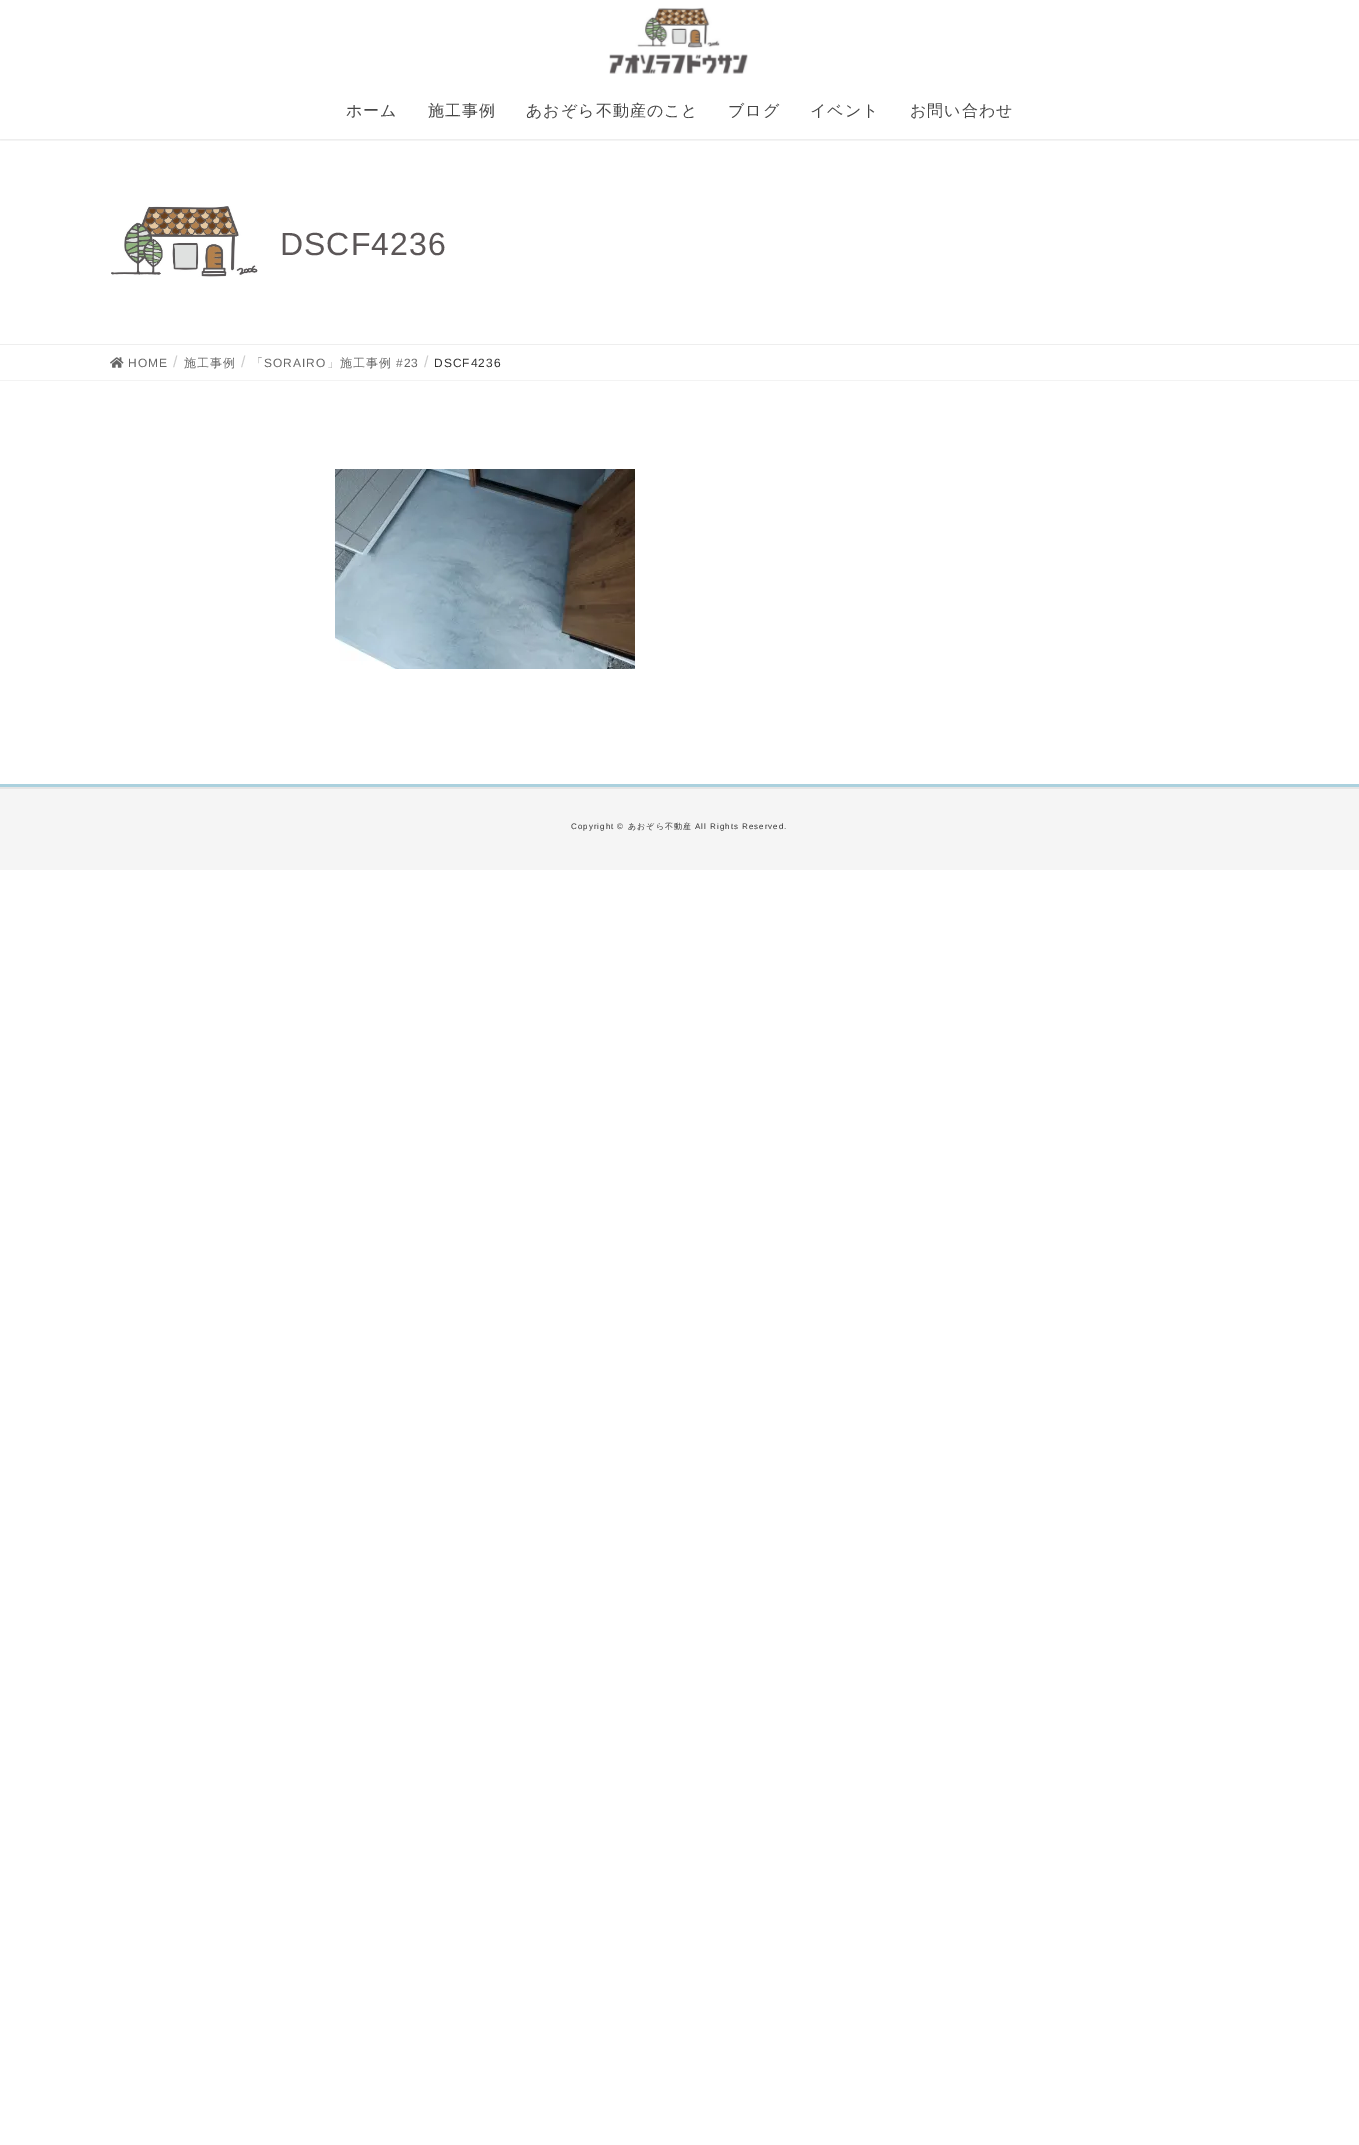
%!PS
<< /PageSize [1359 2145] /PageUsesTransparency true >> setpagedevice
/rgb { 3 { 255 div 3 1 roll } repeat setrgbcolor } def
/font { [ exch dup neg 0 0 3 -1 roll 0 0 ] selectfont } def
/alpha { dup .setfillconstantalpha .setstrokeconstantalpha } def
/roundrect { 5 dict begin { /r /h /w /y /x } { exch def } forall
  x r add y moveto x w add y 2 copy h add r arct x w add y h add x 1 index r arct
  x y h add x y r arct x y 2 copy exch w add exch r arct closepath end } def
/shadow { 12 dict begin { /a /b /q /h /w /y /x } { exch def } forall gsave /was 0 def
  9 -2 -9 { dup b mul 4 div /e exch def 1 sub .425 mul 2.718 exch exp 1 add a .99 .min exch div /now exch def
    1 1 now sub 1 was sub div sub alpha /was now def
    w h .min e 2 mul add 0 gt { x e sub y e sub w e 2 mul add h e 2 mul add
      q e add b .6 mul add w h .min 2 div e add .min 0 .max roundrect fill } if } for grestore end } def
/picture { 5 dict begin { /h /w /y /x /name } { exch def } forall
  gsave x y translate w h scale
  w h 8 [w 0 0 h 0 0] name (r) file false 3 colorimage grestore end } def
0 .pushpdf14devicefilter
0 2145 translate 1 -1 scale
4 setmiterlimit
255 255 255 rgb
0 0 1359 2145 rectfill
gsave
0 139 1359 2 rectclip
0 0 0 rgb
0 1 1359 139 0 1.5 0.1 shadow
grestore
(img_01.rgb) 609 7 139 67 picture
238 238 238 rgb
0 344 1359 1 rectfill
(img_02.rgb) 111 206 147 71 picture
243 243 243 rgb
0 380 1359 1 rectfill
(img_03.rgb) 110 357 14 11 picture
(img_04.rgb) 335 469 300 200 picture
245 245 245 rgb
0 789 1359 81 rectfill
171 209 222 rgb
0 784 1359 3 rectfill
229 229 229 rgb
0 787 1359 2 rectfill
/WenQuanYiZenHei-Medium 16 font
70 70 70 rgb
346 116 moveto 1 0 (ホーム) ashow
428 116 moveto 1 0 (施工事例) ashow
526 116 moveto 1 0 (あおぞら不動産のこと) ashow
728 116 moveto 1 0 (ブログ) ashow
810 116 moveto 1 0 (イベント) ashow
910 116 moveto 1 0 (お問い合わせ) ashow
/LiberationSans-Regular 32 font
91 86 87 rgb
280 255 moveto 1 0 (DSCF4236) ashow
/LiberationSans-Regular 12 font
102 102 102 rgb
128 367 moveto 1 0 (HOME) ashow
/LiberationSans-Regular 16 font
204 204 204 rgb
173 367 moveto 1 0 (/) ashow
/WenQuanYiZenHei-Medium 12 font
102 102 102 rgb
184 367 moveto 1 0 (施工事例) ashow
/LiberationSans-Regular 16 font
204 204 204 rgb
241 367 moveto 1 0 (/) ashow
/WenQuanYiZenHei-Medium 12 font
102 102 102 rgb
251 367 moveto 1 0 (「) ashow
/LiberationSans-Regular 12 font
264 367 moveto 1 0 (SORAIRO) ashow
/WenQuanYiZenHei-Medium 12 font
327 367 moveto 1 0 (」施工事例) ashow
/LiberationSans-Regular 12 font
396 367 moveto 1 0 (#23) ashow
/LiberationSans-Regular 16 font
204 204 204 rgb
424 367 moveto 1 0 (/) ashow
/LiberationSans-Regular 12 font
51 51 51 rgb
434 367 moveto 1 0 (DSCF4236) ashow
/LiberationSans-Regular 8 font
571 829 moveto 1 0 (Copyright ©) ashow
/WenQuanYiZenHei-Medium 8 font
628 829 moveto 1 0 (あおぞら不動産) ashow
/LiberationSans-Regular 8 font
695 829 moveto 1 0 (All Rights Reserved.) ashow
.poppdf14devicefilter showpage
